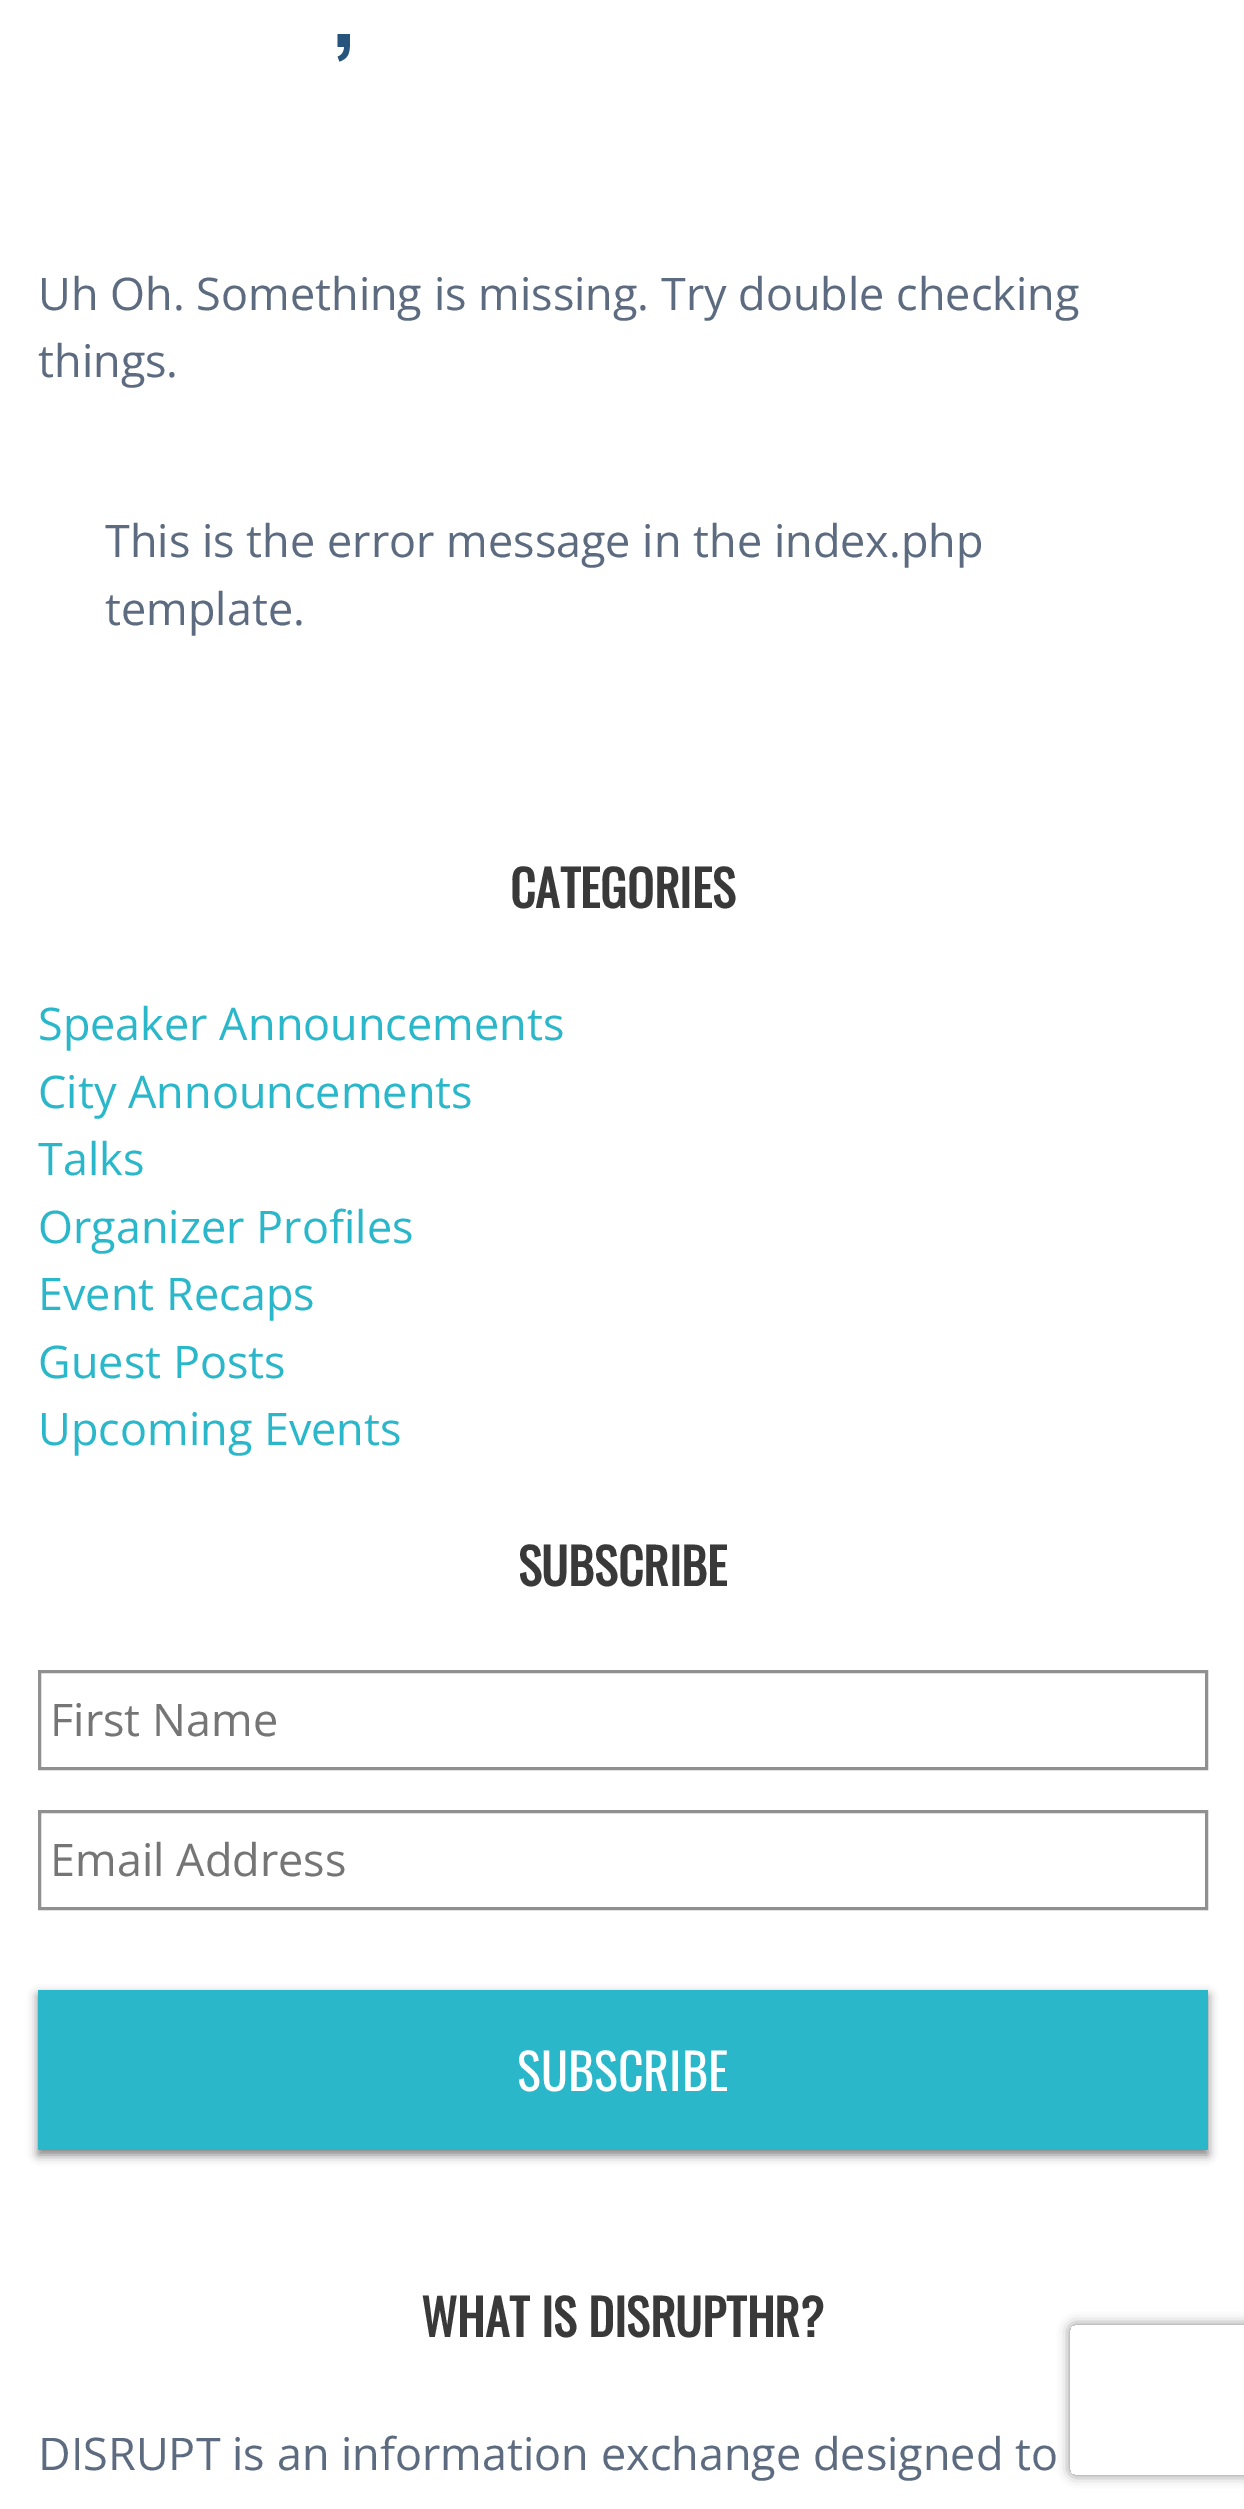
%!PS
<< /PageSize [1244 2509] /PageUsesTransparency true >> setpagedevice
/rgb { 3 { 255 div 3 1 roll } repeat setrgbcolor } def
/font { [ exch dup neg 0 0 3 -1 roll 0 0 ] selectfont } def
/text { moveto show } def
/alpha { dup .setfillconstantalpha .setstrokeconstantalpha } def
/roundrect { 5 dict begin { /r /h /w /y /x } { exch def } forall
  x r add y moveto x w add y 2 copy h add r arct x w add y h add x 1 index r arct
  x y h add x y r arct x y 2 copy exch w add exch r arct closepath end } def
/shadow { 12 dict begin { /a /b /q /h /w /y /x } { exch def } forall gsave /was 0 def
  9 -2 -9 { dup b mul 4 div /e exch def 1 sub .425 mul 2.718 exch exp 1 add a .99 .min exch div /now exch def
    1 1 now sub 1 was sub div sub alpha /was now def
    w h .min e 2 mul add 0 gt { x e sub y e sub w e 2 mul add h e 2 mul add
      q e add b .6 mul add w h .min 2 div e add .min 0 .max roundrect fill } if } for grestore end } def
0 .pushpdf14devicefilter
0 2509 translate 1 -1 scale
4 setmiterlimit
255 255 255 rgb
0 0 1244 2509 rectfill
144 144 144 rgb
3 setlinewidth
39.5 1671.5 1167 97 rectstroke
39.5 1811.5 1167 97 rectstroke
gsave
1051 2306 moveto 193 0 rlineto 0 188 rlineto -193 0 rlineto closepath 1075 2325 moveto 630 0 rlineto 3 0 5 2 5 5 rcurveto 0 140 rlineto 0 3 -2 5 -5 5 rcurveto -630 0 rlineto -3 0 -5 -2 -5 -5 rcurveto 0 -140 rlineto 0 -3 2 -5 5 -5 rcurveto closepath eoclip newpath
128 128 128 rgb
1070 2325 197 150 5 6 1 shadow
grestore
0 0 0 rgb
38 1995 1170 160 0 5 0.5 shadow
42 183 202 rgb
38 1990 1170 160 rectfill
/Oswald-Regular 112 font
38 84 124 rgb
(,) 333 47 text
/OpenSans-Regular 45 font
92 107 128 rgb
(Uh Oh. Something is missing. Try double checking) 38 310 text
(things.) 38 377 text
(This is the error message in the index.php) 105 557 text
(template.) 105 625 text
/Oswald-Bold 49.5 font
57 57 58 rgb
(CATEGORIES) 510 908 text
/OpenSans-Regular 45 font
42 183 202 rgb
(Speaker Announcements) 38 1040 text
(City Announcements) 38 1108 text
(Talks) 38 1175 text
(Organizer Profiles) 38 1243 text
(Event Recaps) 38 1310 text
(Guest Posts) 38 1378 text
(Upcoming Events) 38 1445 text
/Oswald-Bold 49.5 font
57 57 58 rgb
(SUBSCRIBE) 518 1586 text
/OpenSans-Regular 45 font
117 117 117 rgb
(First Name) 50 1736 text
(Email Address) 50 1876 text
/Oswald-Regular 50 font
255 255 255 rgb
(SUBSCRIBE) 517 2091 text
/Oswald-Bold 49.5 font
57 57 58 rgb
(WHAT IS DISRUPTHR?) 421 2337 text
/OpenSans-Regular 45 font
92 107 128 rgb
(DISRUPT is an information exchange designed to) 38 2470 text
.poppdf14devicefilter showpage
